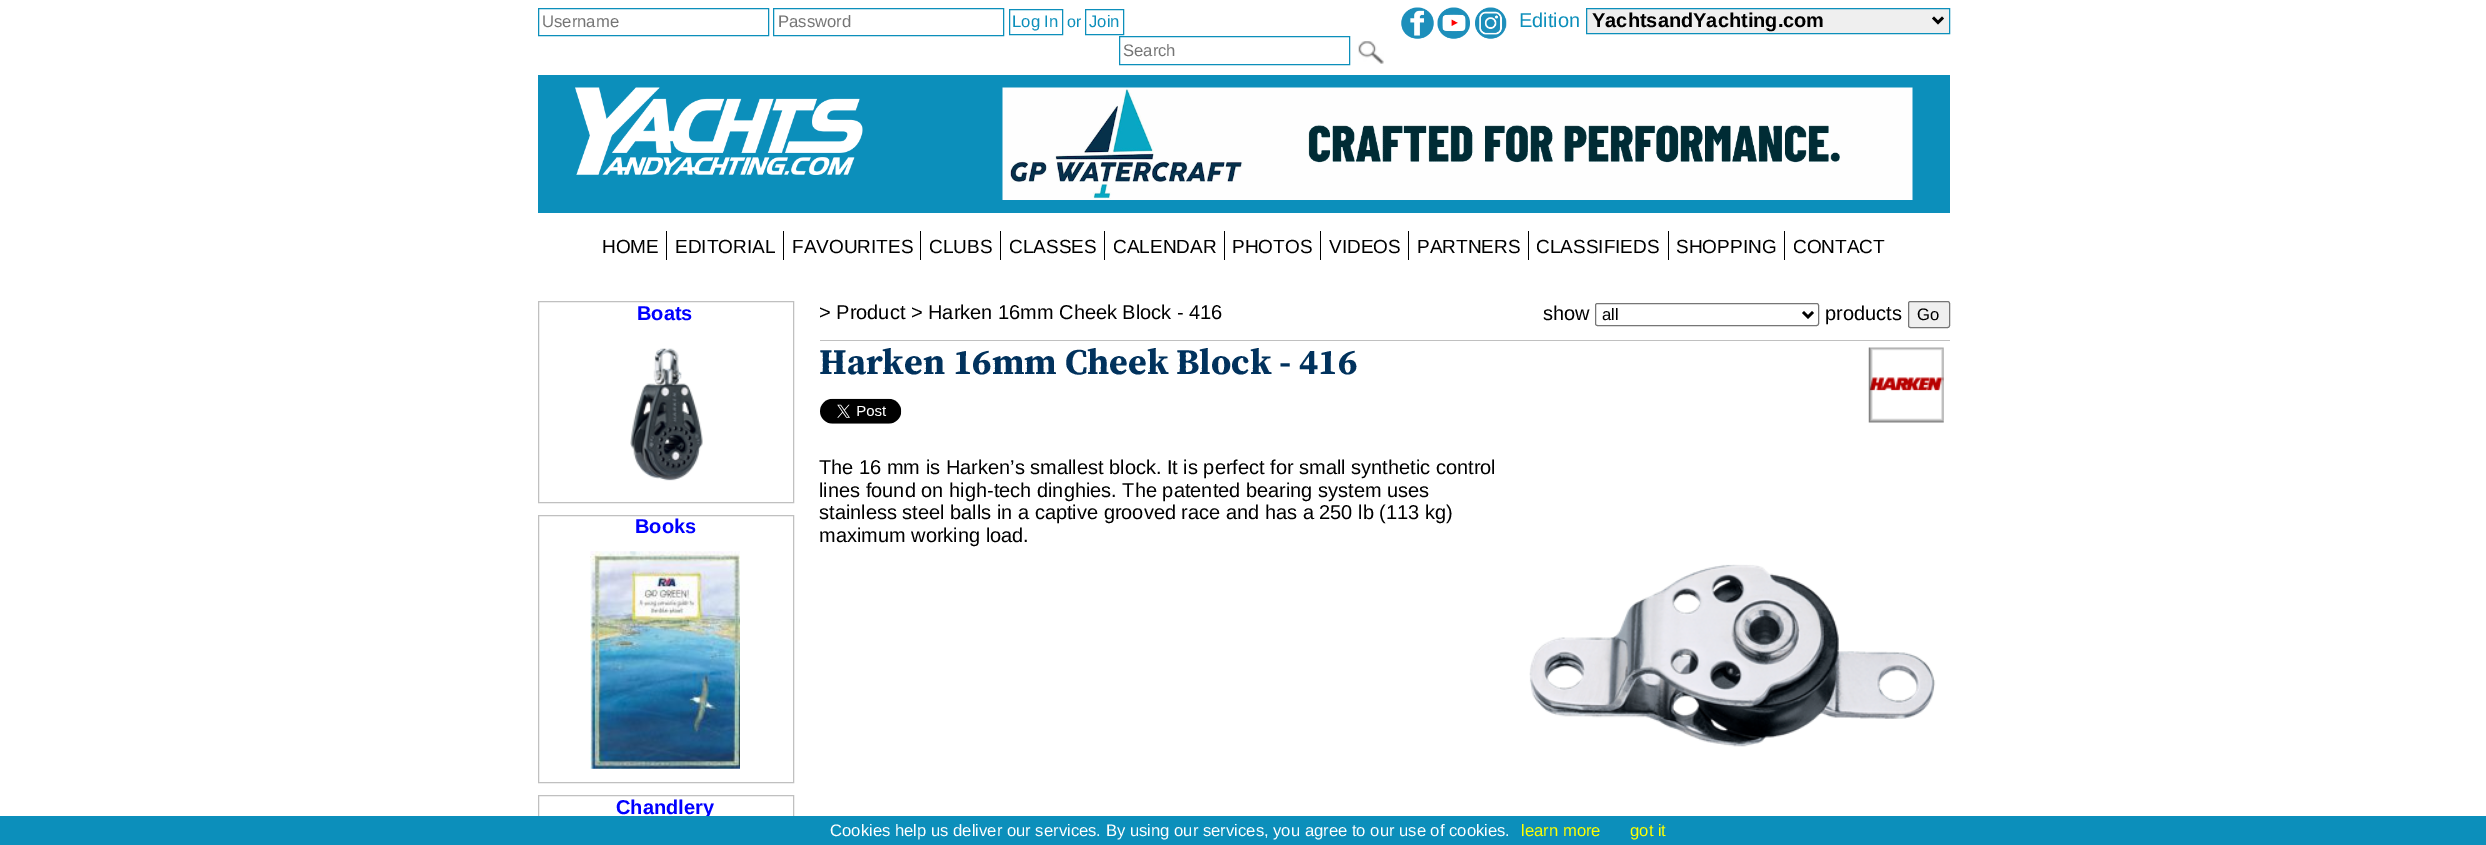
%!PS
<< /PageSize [2486 845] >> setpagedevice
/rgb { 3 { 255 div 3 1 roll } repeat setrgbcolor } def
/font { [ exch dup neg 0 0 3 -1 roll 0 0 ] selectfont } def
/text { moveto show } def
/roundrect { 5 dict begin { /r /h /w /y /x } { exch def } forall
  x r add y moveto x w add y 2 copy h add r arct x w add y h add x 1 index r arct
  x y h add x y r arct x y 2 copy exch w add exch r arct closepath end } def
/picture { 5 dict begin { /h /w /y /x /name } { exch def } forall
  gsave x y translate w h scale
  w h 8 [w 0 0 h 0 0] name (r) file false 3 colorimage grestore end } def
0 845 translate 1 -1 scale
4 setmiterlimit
255 255 255 rgb
0 0 2486 845 rectfill
12 143 187 rgb
538.5 8.5 230 27 rectstroke
773.5 8.5 230 27 rectstroke
1009.5 9.5 53 25 rectstroke
1085.5 9.5 38 25 rectstroke
(img_01.rgb) 1401 7 33 32 picture
(img_02.rgb) 1437 7 33 32 picture
(img_03.rgb) 1475 7 32 32 picture
239 239 239 rgb
1586.5 8.5 moveto 363 0 rlineto 0 25 rlineto -363 0 rlineto closepath gsave fill grestore
12 143 187 rgb
stroke
0 0 0 rgb
2.5 setlinewidth
1933 17.5 moveto 5 5 rlineto 5 -5 rlineto stroke
12 143 187 rgb
1 setlinewidth
1119.5 36.5 230 28 rectstroke
(img_04.rgb) 1358 41 26 23 picture
538 75 1412 138 rectfill
(img_05.rgb) 575 87 288 88 picture
(img_06.rgb) 1002 87 911 113 picture
0 0 0 rgb
666 231 1 29 rectfill
783 231 1 29 rectfill
920 231 1 29 rectfill
1000 231 1 29 rectfill
1104 231 1 29 rectfill
1224 231 1 29 rectfill
1320 231 1 29 rectfill
1408 231 1 29 rectfill
1528 231 1 29 rectfill
1668 231 1 29 rectfill
1784 231 1 29 rectfill
192 192 192 rgb
538.5 301.5 255 201 rectstroke
(img_07.rgb) 630 348 73 133 picture
538.5 515.5 255 267 rectstroke
(img_08.rgb) 590 551 150 218 picture
538.5 795.5 255 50 rectstroke
118 118 118 rgb
1595.5 303.5 223 22 2 roundrect stroke
0 0 0 rgb
2.5 setlinewidth
1803 312 moveto 5 5 rlineto 5 -5 rlineto stroke
239 239 239 rgb
1908.5 301.5 41 26 2 roundrect gsave fill grestore
118 118 118 rgb
1 setlinewidth
stroke
192 192 192 rgb
820 340 1130 1 rectfill
(img_09.rgb) 1868 347 76 76 picture
(img_10.rgb) 820 398 82 26 picture
(img_11.rgb) 1529 564 407 183 picture
/LiberationSans-Regular 16.65 font
117 117 117 rgb
(Username) 542 27 text
(Password) 778 27 text
12 143 187 rgb
(Log In) 1012 27 text
/LiberationSans-Regular 16 font
(or) 1067 27 text
/LiberationSans-Regular 16.65 font
(Join) 1089 27 text
/LiberationSans-Regular 20 font
(Edition) 1519 27 text
/LiberationSans-Bold 20 font
0 0 0 rgb
(YachtsandYachting.com) 1592 27 text
/LiberationSans-Regular 16.65 font
117 117 117 rgb
(Search) 1123 56 text
/LiberationSans-Regular 19 font
0 0 0 rgb
(HOME) 602 253 text
(EDITORIAL) 675 253 text
(FAVOURITES) 792 253 text
(CLUBS) 929 253 text
(CLASSES) 1009 253 text
(CALENDAR) 1113 253 text
(PHOTOS) 1232 253 text
(VIDEOS) 1329 253 text
(PARTNERS) 1417 253 text
(CLASSIFIEDS) 1536 253 text
(SHOPPING) 1676 253 text
(CONTACT) 1793 253 text
/LiberationSans-Bold 20 font
0 0 255 rgb
(Boats) 637 320 text
(Books) 635 533 text
(Chandlery) 616 814 text
/LiberationSans-Regular 20 font
0 0 0 rgb
(> Product > Harken 16mm Cheek Block - 416) 819 319 text
(show) 1543 320 text
/LiberationSans-Regular 16.65 font
(all) 1602 320 text
/LiberationSans-Regular 20 font
(products) 1825 320 text
/LiberationSans-Regular 16.65 font
(Go) 1917 320 text
/SourceSerifPro-Bold 36 font
1 50 93 rgb
(Harken 16mm Cheek Block - 416) 819 374 text
/LiberationSans-Regular 20 font
0 0 0 rgb
(The 16 mm is Harken’s smallest block. It is perfect for small synthetic control) 819 474 text
(lines found on high-tech dinghies. The patented bearing system uses) 819 497 text
(stainless steel balls in a captive grooved race and has a 250 lb \(113 kg\)) 819 519 text
(maximum working load.) 819 542 text
12 143 187 rgb
0 816 2486 29 rectfill
/LiberationSans-Regular 16.65 font
255 255 255 rgb
(Cookies help us deliver our services. By using our services, you agree to our use of cookies.) 830 836 text
255 255 0 rgb
(learn more) 1521 836 text
(got it) 1630 836 text
showpage
